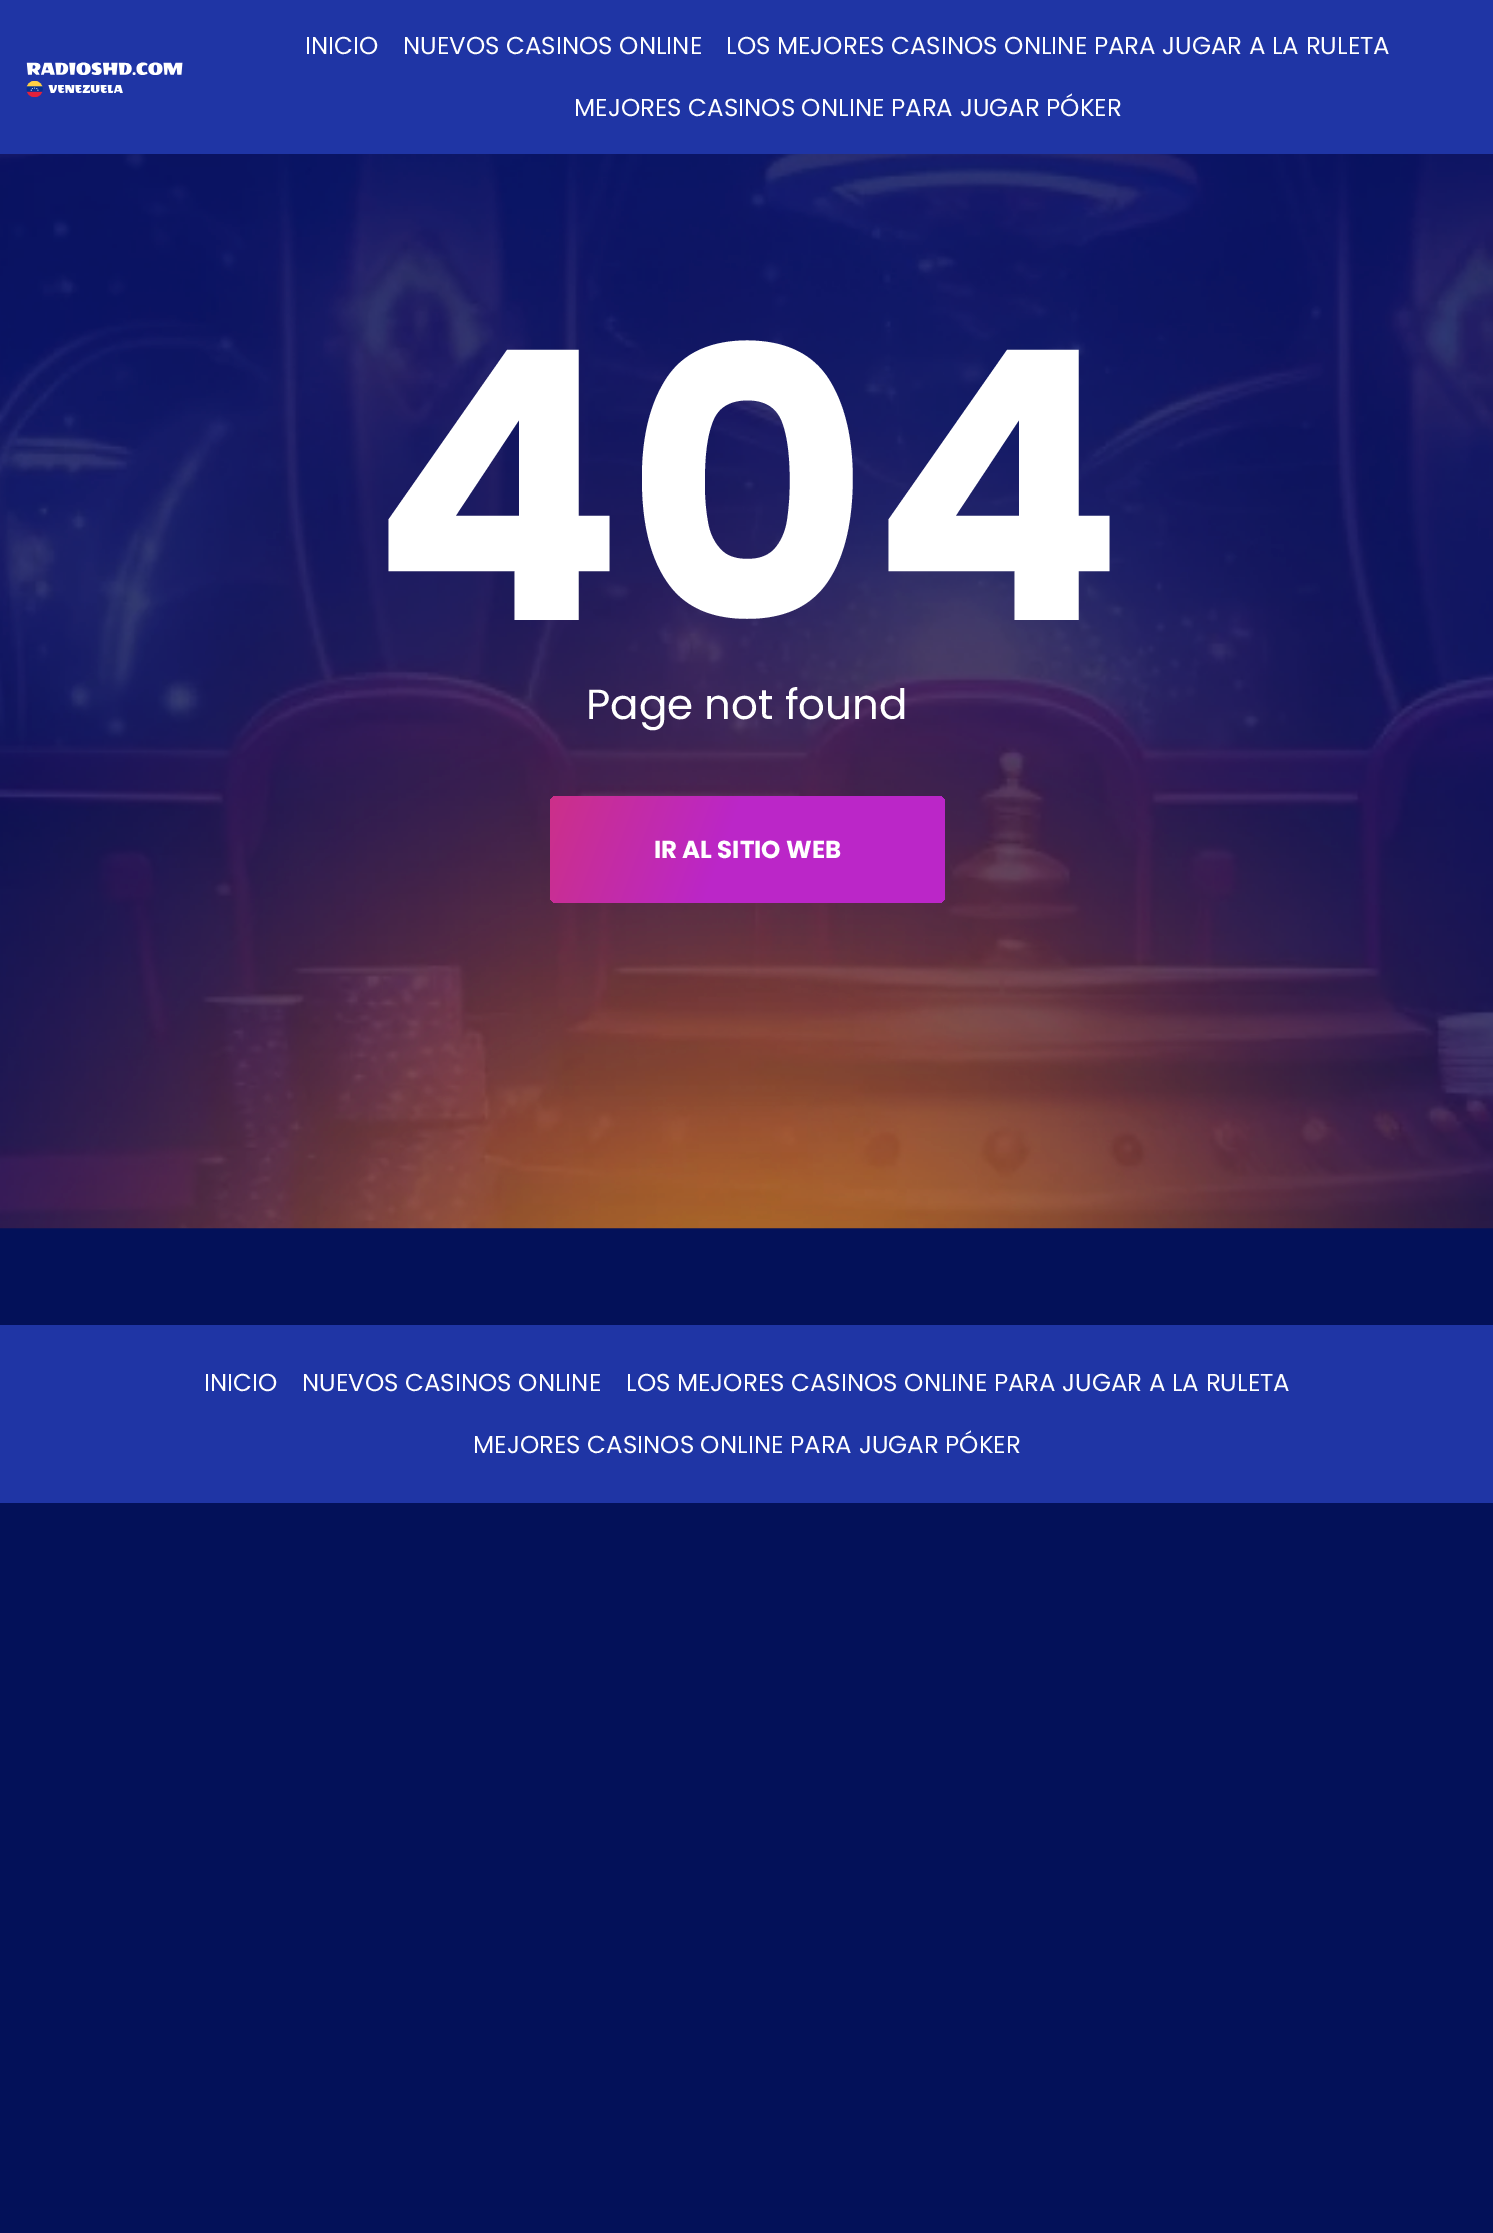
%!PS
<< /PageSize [1493 2233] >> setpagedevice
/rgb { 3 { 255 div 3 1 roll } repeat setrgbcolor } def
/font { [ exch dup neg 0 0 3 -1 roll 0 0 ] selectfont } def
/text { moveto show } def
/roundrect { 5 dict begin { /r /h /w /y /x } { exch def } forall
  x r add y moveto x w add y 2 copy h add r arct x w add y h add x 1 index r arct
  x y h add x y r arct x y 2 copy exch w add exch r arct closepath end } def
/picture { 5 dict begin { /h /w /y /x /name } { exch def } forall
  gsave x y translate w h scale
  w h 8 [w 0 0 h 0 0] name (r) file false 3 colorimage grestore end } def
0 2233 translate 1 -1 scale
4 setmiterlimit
3 17 89 rgb
0 0 1493 2233 rectfill
31 53 165 rgb
0 0 1493 154 rectfill
(img_01.rgb) 26 62 157 36 picture
(img_02.rgb) 0 154 1493 1075 picture
gsave 550 796 395 107 7 roundrect clip newpath
<< /ShadingType 2 /ColorSpace /DeviceRGB /Coords [545 776 939 919] /Extend [true true] /Function << /FunctionType 3 /Domain [0 1] /Functions [<< /FunctionType 2 /Domain [0 1] /C0 [0.804 0.192 0.522] /C1 [0.733 0.149 0.784] /N 1 >> << /FunctionType 2 /Domain [0 1] /C0 [0.733 0.149 0.784] /C1 [0.733 0.149 0.784] /N 1 >>] /Bounds [0.46] /Encode [0 1 0 1] >> >> shfill grestore
0 1325 1493 178 rectfill
/Poppins-Regular 24.5 font
255 255 255 rgb
(INICIO) 305 54 text
(NUEVOS CASINOS ONLINE) 403 54 text
(LOS MEJORES CASINOS ONLINE PARA JUGAR A LA RULETA) 726 54 text
(MEJORES CASINOS ONLINE PARA JUGAR PÓKER) 574 116 text
/Poppins-Bold 376 font
(404) 370 620 text
/Poppins-Regular 42 font
(Page not found) 586 719 text
/Poppins-Bold 24.5 font
(IR AL SITIO WEB) 654 858 text
/Poppins-Regular 24.5 font
(INICIO) 204 1391 text
(NUEVOS CASINOS ONLINE) 302 1391 text
(LOS MEJORES CASINOS ONLINE PARA JUGAR A LA RULETA) 626 1391 text
(MEJORES CASINOS ONLINE PARA JUGAR PÓKER) 473 1453 text
showpage
